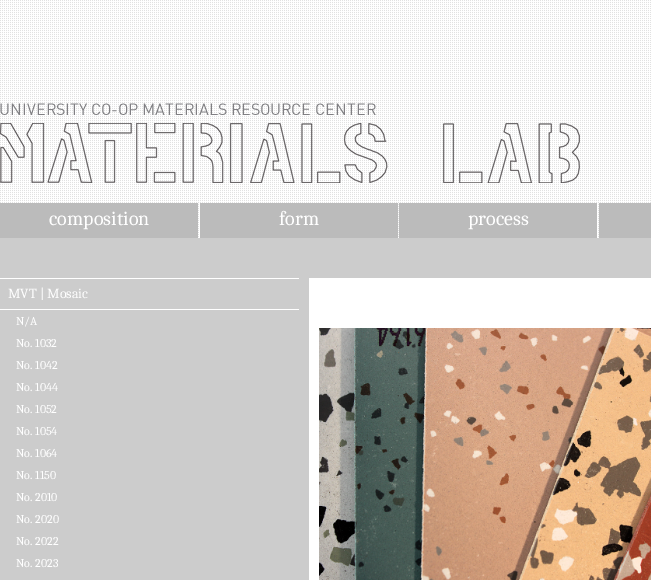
%!PS
<< /PageSize [651 580] >> setpagedevice
/rgb { 3 { 255 div 3 1 roll } repeat setrgbcolor } def
/font { [ exch dup neg 0 0 3 -1 roll 0 0 ] selectfont } def
/text { moveto show } def
/picture { 5 dict begin { /h /w /y /x /name } { exch def } forall
  gsave x y translate w h scale
  w h 8 [w 0 0 h 0 0] name (r) file false 3 colorimage grestore end } def
0 580 translate 1 -1 scale
4 setmiterlimit
255 255 255 rgb
0 0 651 580 rectfill
(img_01.rgb) 0 0 651 238 picture
(img_02.rgb) 0 103 580 80 picture
187 187 187 rgb
0 203 198 35 rectfill
200 203 198 35 rectfill
399 203 198 35 rectfill
599 203 52 35 rectfill
204 204 204 rgb
0 238 651 342 rectfill
255 255 255 rgb
0 278 299 1 rectfill
0 309 299 1 rectfill
309 278 342 302 rectfill
(img_03.rgb) 319 328 332 252 picture
/Caladea-Regular 20 font
(composition) 49 225 text
(form) 279 225 text
(process) 468 225 text
/Caladea-Regular 14 font
(MVT | Mosaic) 8 298 text
/Caladea-Regular 12 font
(N/A) 16 325 text
(No. 1032) 16 347 text
(No. 1042) 16 369 text
(No. 1044) 16 391 text
(No. 1052) 16 413 text
(No. 1054) 16 435 text
(No. 1064) 16 457 text
(No. 1150) 16 479 text
(No. 2010) 16 501 text
(No. 2020) 16 523 text
(No. 2022) 16 545 text
(No. 2023) 16 567 text
showpage
